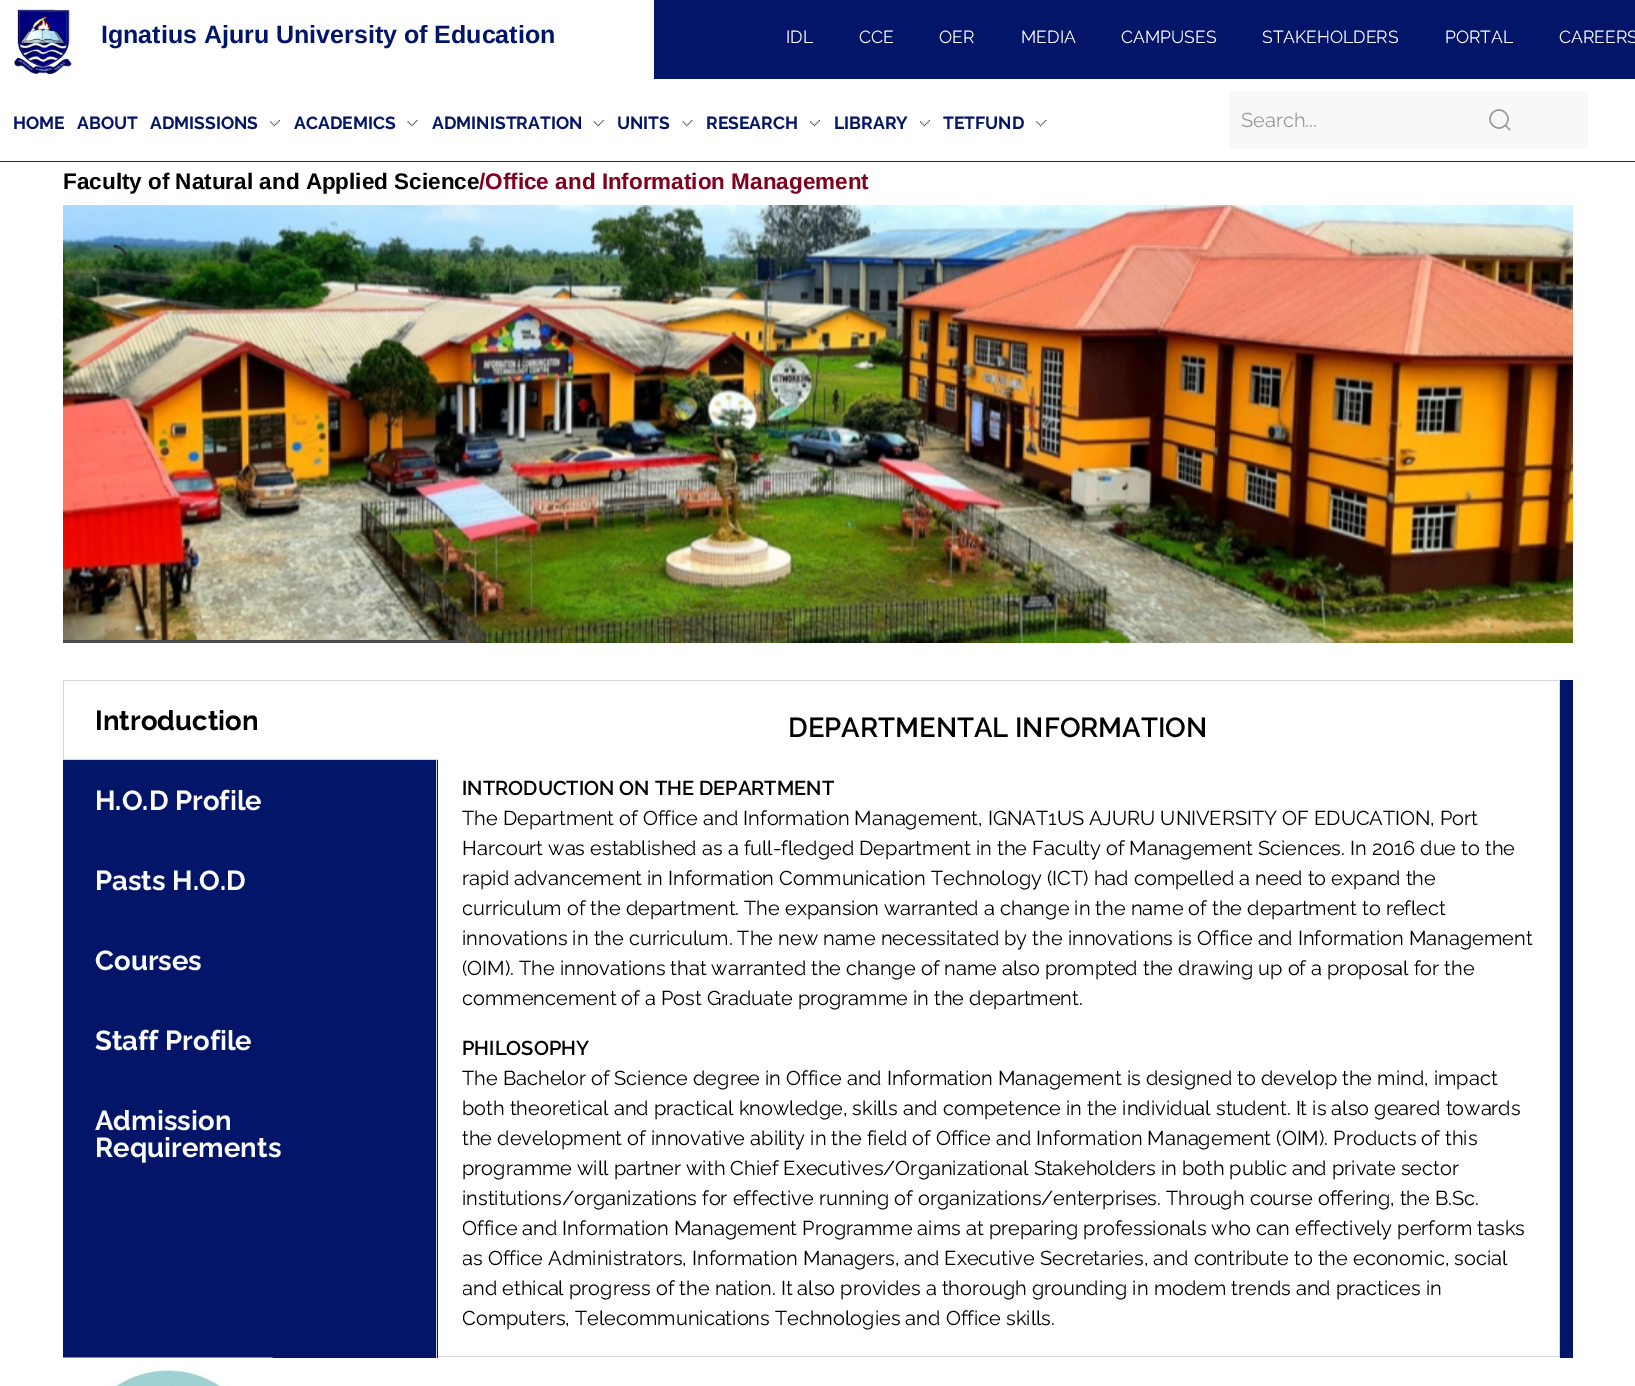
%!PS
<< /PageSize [1635 1386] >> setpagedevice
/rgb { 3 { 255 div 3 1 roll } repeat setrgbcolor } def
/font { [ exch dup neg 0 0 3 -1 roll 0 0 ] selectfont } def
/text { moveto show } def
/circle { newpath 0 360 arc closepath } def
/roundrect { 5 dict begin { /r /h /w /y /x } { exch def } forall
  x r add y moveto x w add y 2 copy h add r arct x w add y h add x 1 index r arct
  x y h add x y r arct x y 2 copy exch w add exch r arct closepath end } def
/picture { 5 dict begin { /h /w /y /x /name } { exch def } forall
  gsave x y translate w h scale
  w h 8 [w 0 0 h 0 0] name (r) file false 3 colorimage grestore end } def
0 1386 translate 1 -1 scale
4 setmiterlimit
255 255 255 rgb
0 0 1635 1386 rectfill
3 21 105 rgb
654 0 981 79 rectfill
(img_01.rgb) 14 9 58 65 picture
128 0 32 rgb
0 161 1635 1 rectfill
(img_02.rgb) 270 120 10 7 picture
(img_03.rgb) 407 120 11 7 picture
(img_04.rgb) 593 120 11 7 picture
(img_03.rgb) 682 120 11 7 picture
(img_02.rgb) 810 120 10 7 picture
(img_02.rgb) 920 120 10 7 picture
(img_05.rgb) 1036 120 11 7 picture
248 248 248 rgb
1229 91 359 58 4 roundrect fill
153 153 153 rgb
1.4 setlinewidth
1499 119 9 circle stroke
1505 125 moveto 5 5 rlineto closepath stroke
(img_06.rgb) 63 205 1510 438 picture
(img_07.rgb) 113 245 15 11 picture
76 76 76 rgb
63 640 402 3 rectfill
3 21 105 rgb
63 680 1510 678 rectfill
255 255 255 rgb
64 681 374 78 rectfill
213 216 220 rgb
63 759 375 1 rectfill
63 680 1497 1 rectfill
63 680 1 80 rectfill
436 759 1 599 rectfill
255 255 255 rgb
438 681 1121 677 rectfill
213 216 220 rgb
1559 680 1 678 rectfill
438 1356 1122 1 rectfill
(img_08.rgb) 63 1357 210 29 picture
/LiberationSans-Bold 25 font
3 21 105 rgb
(Ignatius Ajuru University of Education) 101 43 text
/Raleway-Regular 17.5 font
255 255 255 rgb
(IDL) 786 43 text
(CCE) 859 43 text
(OER) 939 43 text
(MEDIA) 1021 43 text
(CAMPUSES) 1121 43 text
(STAKEHOLDERS) 1262 43 text
(PORTAL) 1445 43 text
(CAREERS) 1559 43 text
/Raleway-Bold 17.5 font
3 21 105 rgb
(HOME) 13 129 text
(ABOUT) 77 129 text
(ADMISSIONS) 150 129 text
(ACADEMICS) 294 129 text
(ADMINISTRATION) 432 129 text
(UNITS) 617 129 text
(RESEARCH) 706 129 text
(LIBRARY) 834 129 text
(TETFUND) 943 129 text
/Raleway-Regular 20 font
153 153 153 rgb
(Search...) 1241 127 text
/LiberationSans-Bold 22.5 font
0 0 0 rgb
(Faculty of Natural and Applied Science) 63 189 text
128 0 32 rgb
(/Office and Information Management) 479 189 text
/Raleway-Bold 27.5 font
0 0 0 rgb
(Introduction) 95 730 text
249 249 249 rgb
(H.O.D Profile) 95 810 text
(Pasts H.O.D) 95 890 text
(Courses) 95 970 text
(Staff Profile) 95 1050 text
(Admission) 95 1130 text
(Requirements) 95 1157 text
/Raleway-SemiBold 27.5 font
0 0 0 rgb
(DEPARTMENTAL INFORMATION) 788 737 text
/Raleway-SemiBold 20 font
(INTRODUCTION ON THE DEPARTMENT) 462 795 text
/Raleway-Regular 20 font
(The Department of Office and Information Management, IGNAT1US AJURU UNIVERSITY OF EDUCATION, Port) 462 825 text
(Harcourt was established as a full-fledged Department in the Faculty of Management Sciences. In 2016 due to the) 462 855 text
(rapid advancement in Information Communication Technology \(ICT\) had compelled a need to expand the) 462 885 text
gsave
463 706 1071 625 rectclip
(curriculum of the department. The expansion warranted a change in the name of the department to reflect) 462 915 text
grestore
(innovations in the curriculum. The new name necessitated by the innovations is Office and Information Management) 462 945 text
gsave
463 706 1071 625 rectclip
(\(OIM\). The innovations that warranted the change of name also prompted the drawing up of a proposal for the) 462 975 text
(commencement of a Post Graduate programme in the department.) 462 1005 text
grestore
/Raleway-SemiBold 20 font
(PHILOSOPHY) 462 1055 text
/Raleway-Regular 20 font
(The Bachelor of Science degree in Office and Information Management is designed to develop the mind, impact) 462 1085 text
(both theoretical and practical knowledge, skills and competence in the individual student. It is also geared towards) 462 1115 text
(the development of innovative ability in the field of Office and Information Management \(OIM\). Products of this) 462 1145 text
(programme will partner with Chief Executives/Organizational Stakeholders in both public and private sector) 462 1175 text
(institutions/organizations for effective running of organizations/enterprises. Through course offering, the B.Sc.) 462 1205 text
gsave
463 706 1071 625 rectclip
(Office and Information Management Programme aims at preparing professionals who can effectively perform tasks) 462 1235 text
(as Office Administrators, Information Managers, and Executive Secretaries, and contribute to the economic, social) 462 1265 text
(and ethical progress of the nation. It also provides a thorough grounding in modem trends and practices in) 462 1295 text
(Computers, Telecommunications Technologies and Office skills.) 462 1325 text
grestore
showpage
